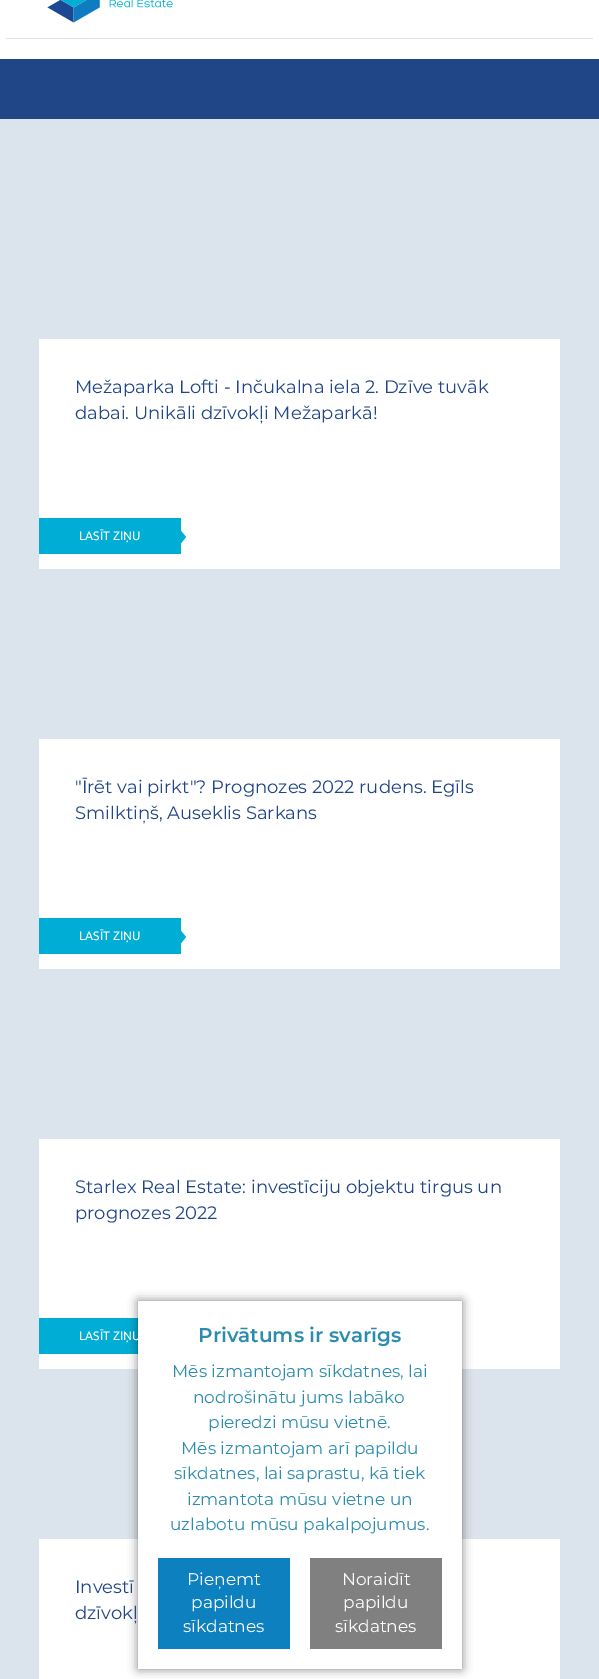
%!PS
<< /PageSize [599 1679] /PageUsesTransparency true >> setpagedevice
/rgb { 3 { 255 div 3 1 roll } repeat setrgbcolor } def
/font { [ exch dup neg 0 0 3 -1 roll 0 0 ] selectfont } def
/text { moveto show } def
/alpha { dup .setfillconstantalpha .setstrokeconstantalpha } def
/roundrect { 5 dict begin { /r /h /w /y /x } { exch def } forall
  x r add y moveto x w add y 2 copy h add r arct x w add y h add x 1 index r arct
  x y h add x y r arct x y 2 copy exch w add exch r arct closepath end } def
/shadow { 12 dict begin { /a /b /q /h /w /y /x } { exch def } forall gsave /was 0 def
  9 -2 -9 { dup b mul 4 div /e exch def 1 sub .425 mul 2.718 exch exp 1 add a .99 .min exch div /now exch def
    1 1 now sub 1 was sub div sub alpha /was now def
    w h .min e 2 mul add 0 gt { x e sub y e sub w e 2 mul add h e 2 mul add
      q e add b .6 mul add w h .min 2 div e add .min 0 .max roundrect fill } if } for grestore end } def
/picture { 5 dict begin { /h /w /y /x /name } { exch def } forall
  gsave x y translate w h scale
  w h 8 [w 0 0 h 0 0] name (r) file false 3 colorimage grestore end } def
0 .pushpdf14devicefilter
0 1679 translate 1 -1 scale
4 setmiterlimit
219 228 237 rgb
0 0 599 1679 rectfill
255 255 255 rgb
0 0 599 59 rectfill
219 228 237 rgb
6 38 587 1 rectfill
(img_01.rgb) 47 0 126 23 picture
33 70 135 rgb
0 59 599 60 rectfill
255 255 255 rgb
39 339 521 230 rectfill
0 173 213 rgb
39 518 142 36 rectfill
174 552 moveto 0 -30 rlineto 12 15 rlineto closepath fill
255 255 255 rgb
39 739 521 230 rectfill
0 173 213 rgb
39 918 142 36 rectfill
174 952 moveto 0 -30 rlineto 12 15 rlineto closepath fill
255 255 255 rgb
39 1139 521 230 rectfill
0 173 213 rgb
39 1318 99 36 rectfill
255 255 255 rgb
39 1539 521 140 rectfill
0 0 0 rgb
138 1301 324 368 0 5 0.5 shadow
255 255 255 rgb
138 1301 324 368 rectfill
13 128 191 rgb
158 1558 132 91 rectfill
128 128 128 rgb
310 1558 132 91 rectfill
/Montserrat-Regular 18 font
33 70 135 rgb
(Mežaparka Lofti - Inčukalna iela 2. Dzīve tuvāk) 75 393 text
(dabai. Unikāli dzīvokļi Mežaparkā!) 75 419 text
/Ubuntu-Regular 12.25 font
255 255 255 rgb
(LASĪT ZIŅU) 79 540 text
/Montserrat-Regular 18 font
33 70 135 rgb
("Īrēt vai pirkt"? Prognozes 2022 rudens. Egīls) 75 793 text
(Smilktiņš, Auseklis Sarkans) 75 819 text
/Ubuntu-Regular 12.25 font
255 255 255 rgb
(LASĪT ZIŅU) 79 940 text
/Montserrat-Regular 18 font
33 70 135 rgb
(Starlex Real Estate: investīciju objektu tirgus un) 75 1193 text
(prognozes 2022) 75 1219 text
/Ubuntu-Regular 12.25 font
255 255 255 rgb
(LASĪT ZIŅU) 79 1340 text
/Montserrat-Regular 18 font
33 70 135 rgb
(Investī) 75 1593 text
(dzīvokļ) 75 1619 text
/Montserrat-SemiBold 20 font
43 140 173 rgb
(Privātums ir svarīgs) 198 1342 text
/Montserrat-Regular 17 font
(Mēs izmantojam sīkdatnes, lai) 172 1377 text
(nodrošinātu jums labāko) 193 1403 text
(pieredzi mūsu vietnē.) 208 1428 text
(Mēs izmantojam arī papildu) 181 1454 text
(sīkdatnes, lai saprastu, kā tiek) 174 1479 text
(izmantota mūsu vietne un) 187 1505 text
(uzlabotu mūsu pakalpojumus.) 170 1530 text
255 255 255 rgb
(Pieņemt) 187 1585 text
(papildu) 191 1608 text
(sīkdatnes) 183 1632 text
(Noraidīt) 342 1585 text
(papildu) 343 1608 text
(sīkdatnes) 335 1632 text
.poppdf14devicefilter showpage
